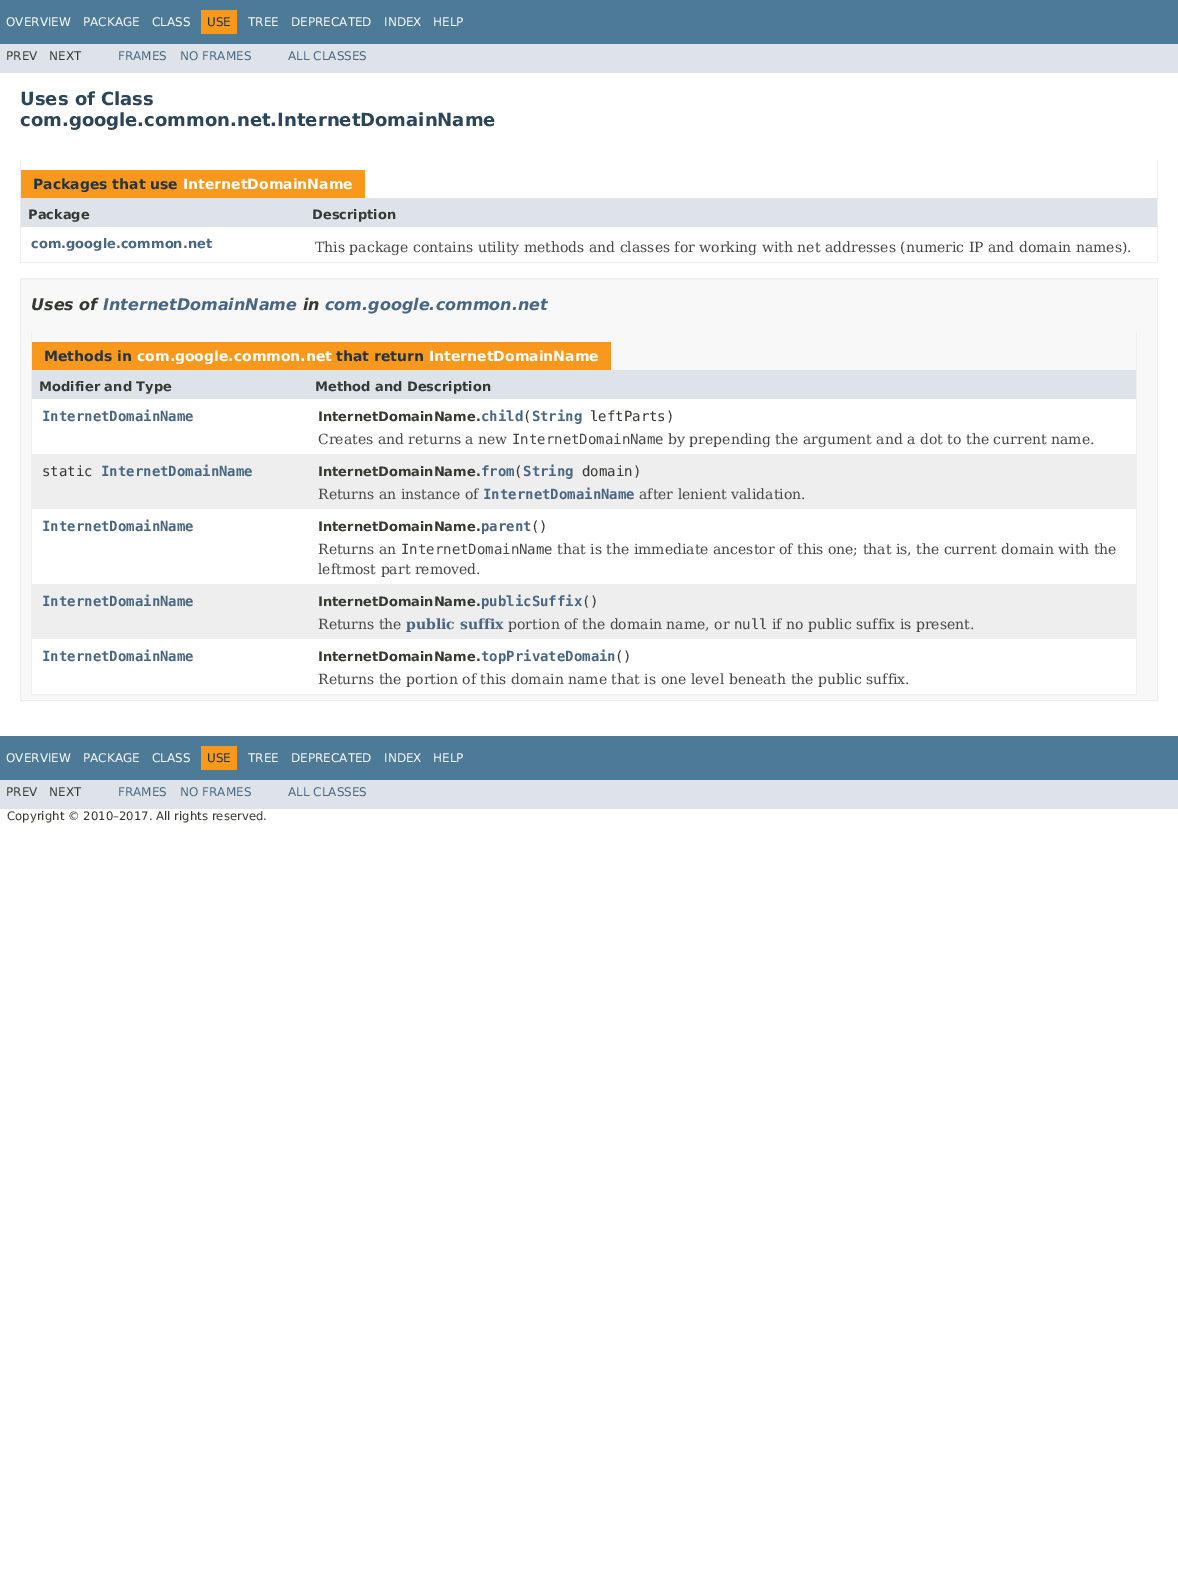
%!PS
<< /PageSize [1178 1569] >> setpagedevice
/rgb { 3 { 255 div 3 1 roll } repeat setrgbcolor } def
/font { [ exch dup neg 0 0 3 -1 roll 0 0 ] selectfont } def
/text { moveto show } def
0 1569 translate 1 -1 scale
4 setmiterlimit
255 255 255 rgb
0 0 1178 1569 rectfill
77 122 151 rgb
0 0 1178 44 rectfill
248 152 29 rgb
201 10 36 24 rectfill
222 227 233 rgb
0 44 1178 29 rectfill
238 238 238 rgb
1157 160 1 103 rectfill
20 262 1138 1 rectfill
20 160 1 103 rectfill
248 152 29 rgb
21 170 344 28 rectfill
222 227 233 rgb
21 198 1136 29 rectfill
248 248 248 rgb
20.5 278.5 moveto 1137 0 rlineto 0 422 rlineto -1137 0 rlineto closepath gsave fill grestore
237 237 237 rgb
stroke
238 238 238 rgb
1136 332 1 363 rectfill
31 694 1106 1 rectfill
31 332 1 363 rectfill
248 152 29 rgb
32 342 579 28 rectfill
222 227 233 rgb
32 370 1104 29 rectfill
255 255 255 rgb
32 399 1104 55 rectfill
238 238 239 rgb
32 454 1104 55 rectfill
255 255 255 rgb
32 509 1104 75 rectfill
238 238 239 rgb
32 584 1104 55 rectfill
255 255 255 rgb
32 639 1104 55 rectfill
77 122 151 rgb
0 736 1178 44 rectfill
248 152 29 rgb
201 746 36 24 rectfill
222 227 233 rgb
0 780 1178 29 rectfill
/DejaVuSans-Regular 12 font
255 255 255 rgb
(OVERVIEW) 6 26 text
(PACKAGE) 83 26 text
(CLASS) 152 26 text
37 52 65 rgb
(USE) 207 26 text
255 255 255 rgb
(TREE) 248 26 text
(DEPRECATED) 291 26 text
(INDEX) 384 26 text
(HELP) 433 26 text
53 56 51 rgb
(PREV) 6 60 text
(NEXT) 49 60 text
74 103 130 rgb
(FRAMES) 118 60 text
(NO FRAMES) 180 60 text
(ALL CLASSES) 288 60 text
/DejaVuSans-Bold 18 font
44 69 87 rgb
(Uses of Class) 20 105 text
(com.google.common.net.InternetDomainName) 20 126 text
/DejaVuSans-Bold 14 font
37 52 65 rgb
(Packages that use) 33 189 text
255 255 255 rgb
(InternetDomainName) 183 189 text
/DejaVuSans-Bold 13 font
53 56 51 rgb
(Package) 28 219 text
(Description) 312 219 text
74 103 130 rgb
(com.google.common.net) 31 248 text
/DejaVuSerif-Regular 14 font
71 71 71 rgb
(This package contains utility methods and classes for working with net addresses \(numeric IP and domain names\).) 315 252 text
/DejaVuSans-BoldItalic 16 font
53 56 51 rgb
(Uses of) 31 310 text
74 103 130 rgb
(InternetDomainName) 103 310 text
53 56 51 rgb
(in) 303 310 text
74 103 130 rgb
(com.google.common.net) 325 310 text
/DejaVuSans-Bold 14 font
37 52 65 rgb
(Methods in) 44 361 text
255 255 255 rgb
(com.google.common.net) 137 361 text
37 52 65 rgb
(that return) 336 361 text
255 255 255 rgb
(InternetDomainName) 429 361 text
/DejaVuSans-Bold 13 font
53 56 51 rgb
(Modifier and Type) 39 391 text
(Method and Description) 315 391 text
/DejaVuSansMono-Bold 14 font
74 103 130 rgb
(InternetDomainName) 42 421 text
(child String) 481 421 text
/DejaVuSans-Bold 13 font
53 56 51 rgb
(InternetDomainName.) 318 421 text
/DejaVuSansMono-Regular 14 font
(\() 523 421 text
(leftParts\)) 590 421 text
/DejaVuSerif-Regular 14 font
71 71 71 rgb
(Creates and returns a new) 318 444 text
/DejaVuSansMono-Regular 14 font
(InternetDomainName) 512 444 text
/DejaVuSerif-Regular 14 font
(by prepending the argument and a dot to the current name.) 668 444 text
/DejaVuSansMono-Regular 14 font
53 56 51 rgb
(static) 42 476 text
/DejaVuSansMono-Bold 14 font
74 103 130 rgb
(InternetDomainName) 101 476 text
(from String) 481 476 text
/DejaVuSans-Bold 13 font
53 56 51 rgb
(InternetDomainName.) 318 476 text
/DejaVuSansMono-Regular 14 font
(\() 514 476 text
(domain\)) 582 476 text
/DejaVuSerif-Regular 14 font
71 71 71 rgb
(Returns an instance of) 318 499 text
/DejaVuSansMono-Bold 14 font
74 103 130 rgb
(InternetDomainName) 483 499 text
/DejaVuSerif-Regular 14 font
71 71 71 rgb
(after lenient validation.) 639 499 text
/DejaVuSansMono-Bold 14 font
74 103 130 rgb
(InternetDomainName) 42 531 text
/DejaVuSans-Bold 13 font
53 56 51 rgb
(InternetDomainName.) 318 531 text
/DejaVuSansMono-Bold 14 font
74 103 130 rgb
(parent) 481 531 text
/DejaVuSansMono-Regular 14 font
53 56 51 rgb
(\(\)) 531 531 text
/DejaVuSerif-Regular 14 font
71 71 71 rgb
(Returns an) 318 554 text
/DejaVuSansMono-Regular 14 font
(InternetDomainName) 401 554 text
/DejaVuSerif-Regular 14 font
(that is the immediate ancestor of this one; that is, the current domain with the) 557 554 text
(leftmost part removed.) 318 574 text
/DejaVuSansMono-Bold 14 font
74 103 130 rgb
(InternetDomainName) 42 606 text
/DejaVuSans-Bold 13 font
53 56 51 rgb
(InternetDomainName.) 318 606 text
/DejaVuSansMono-Bold 14 font
74 103 130 rgb
(publicSuffix) 481 606 text
/DejaVuSansMono-Regular 14 font
53 56 51 rgb
(\(\)) 582 606 text
/DejaVuSerif-Regular 14 font
71 71 71 rgb
(Returns the) 318 629 text
/DejaVuSerif-Bold 14 font
74 103 130 rgb
(public suffix) 406 629 text
/DejaVuSerif-Regular 14 font
71 71 71 rgb
(portion of the domain name, or) 508 629 text
/DejaVuSansMono-Regular 14 font
(null) 734 629 text
/DejaVuSerif-Regular 14 font
(if no public suffix is present.) 772 629 text
/DejaVuSansMono-Bold 14 font
74 103 130 rgb
(InternetDomainName) 42 661 text
/DejaVuSans-Bold 13 font
53 56 51 rgb
(InternetDomainName.) 318 661 text
/DejaVuSansMono-Bold 14 font
74 103 130 rgb
(topPrivateDomain) 481 661 text
/DejaVuSansMono-Regular 14 font
53 56 51 rgb
(\(\)) 615 661 text
/DejaVuSerif-Regular 14 font
71 71 71 rgb
(Returns the portion of this domain name that is one level beneath the public suffix.) 318 684 text
/DejaVuSans-Regular 12 font
255 255 255 rgb
(OVERVIEW) 6 762 text
(PACKAGE) 83 762 text
(CLASS) 152 762 text
37 52 65 rgb
(USE) 207 762 text
255 255 255 rgb
(TREE) 248 762 text
(DEPRECATED) 291 762 text
(INDEX) 384 762 text
(HELP) 433 762 text
53 56 51 rgb
(PREV) 6 796 text
(NEXT) 49 796 text
74 103 130 rgb
(FRAMES) 118 796 text
(NO FRAMES) 180 796 text
(ALL CLASSES) 288 796 text
/DejaVuSans-Regular 11.7 font
53 56 51 rgb
(Copyright © 2010–2017. All rights reserved.) 7 820 text
showpage
